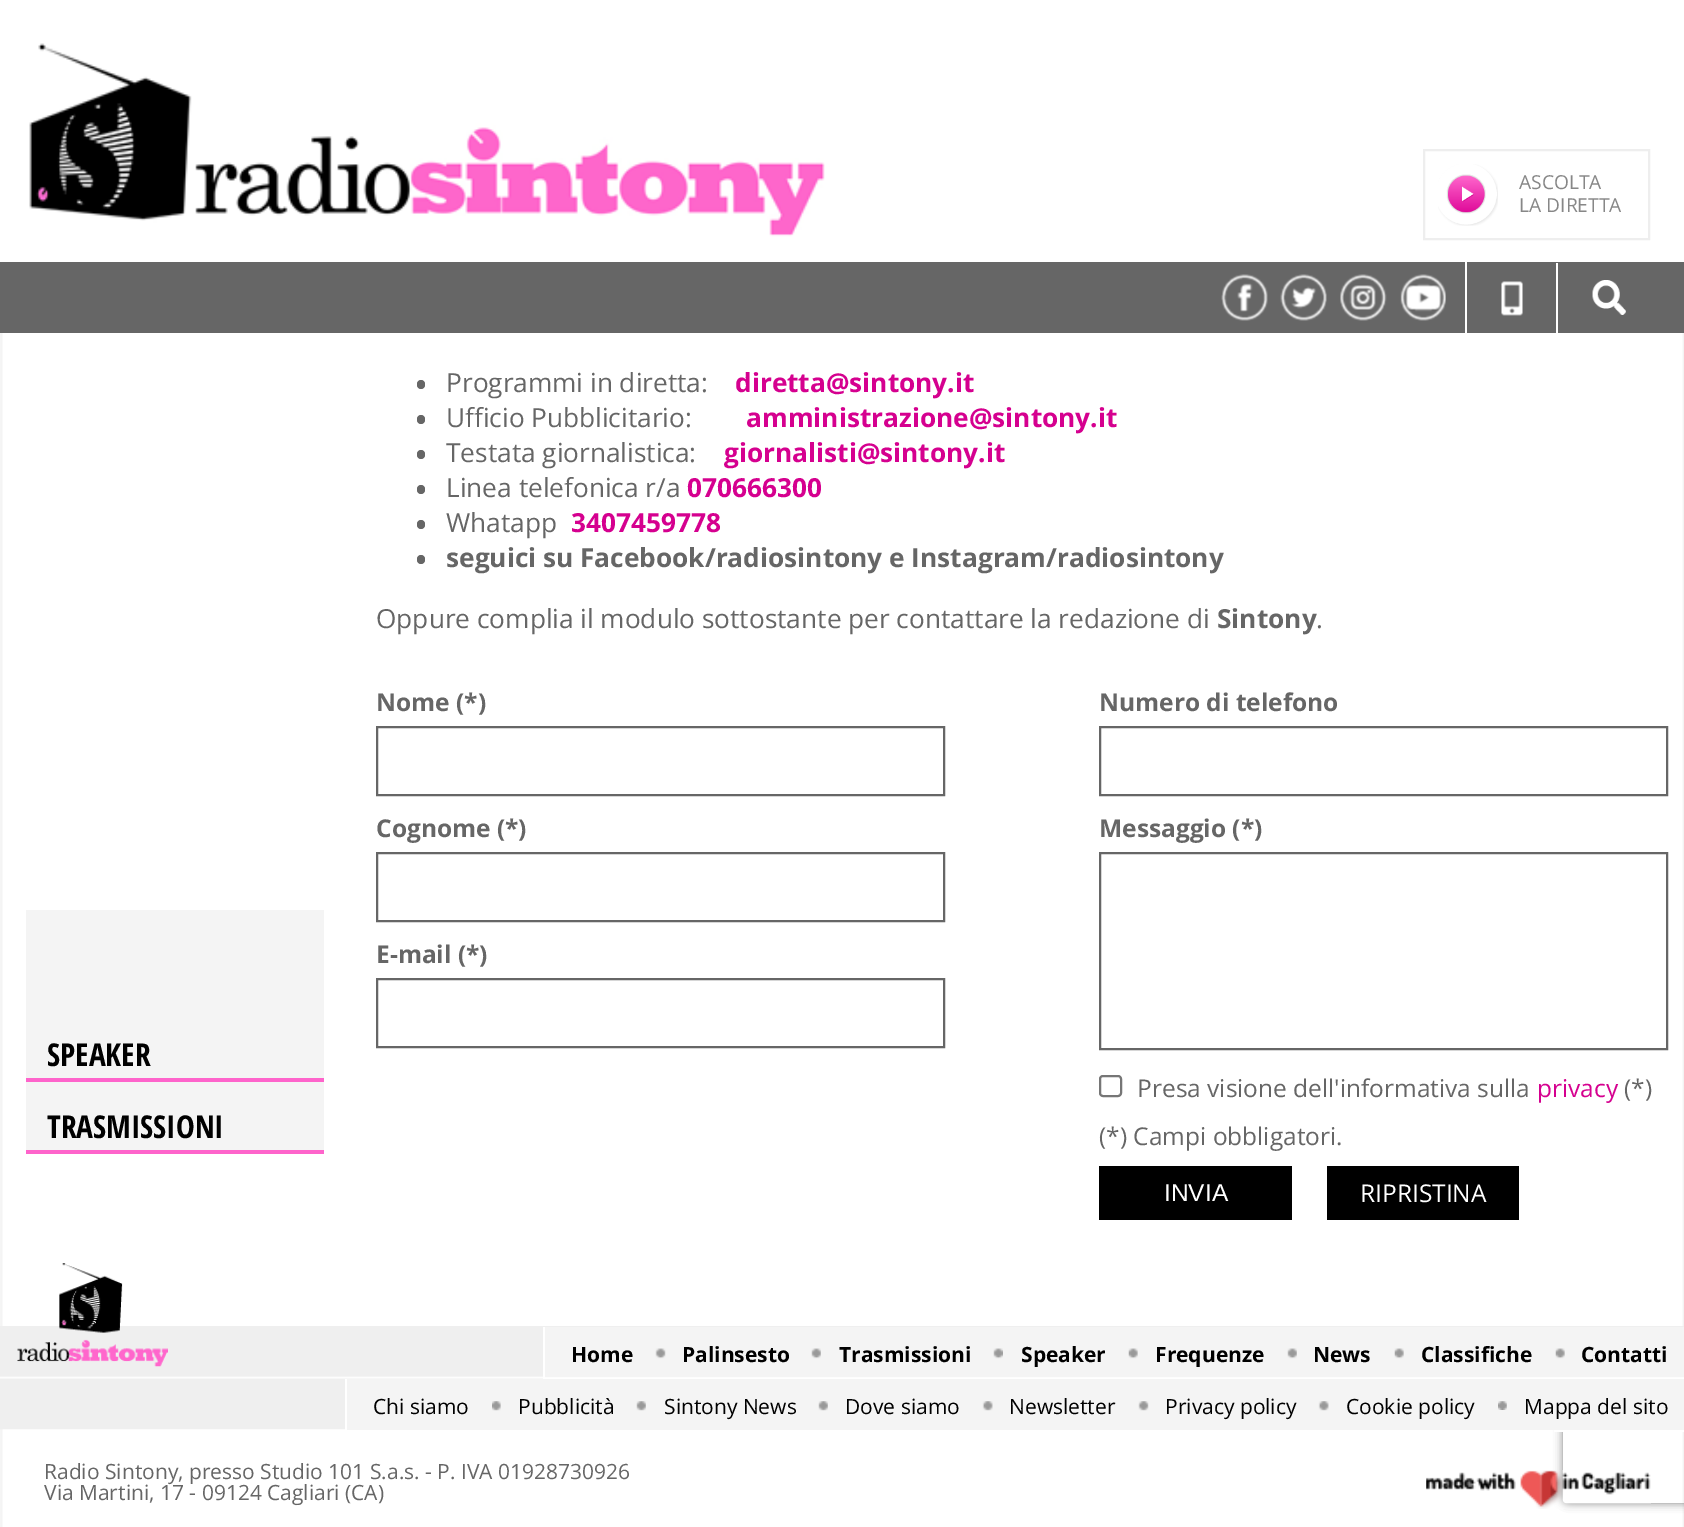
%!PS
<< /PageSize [1684 1527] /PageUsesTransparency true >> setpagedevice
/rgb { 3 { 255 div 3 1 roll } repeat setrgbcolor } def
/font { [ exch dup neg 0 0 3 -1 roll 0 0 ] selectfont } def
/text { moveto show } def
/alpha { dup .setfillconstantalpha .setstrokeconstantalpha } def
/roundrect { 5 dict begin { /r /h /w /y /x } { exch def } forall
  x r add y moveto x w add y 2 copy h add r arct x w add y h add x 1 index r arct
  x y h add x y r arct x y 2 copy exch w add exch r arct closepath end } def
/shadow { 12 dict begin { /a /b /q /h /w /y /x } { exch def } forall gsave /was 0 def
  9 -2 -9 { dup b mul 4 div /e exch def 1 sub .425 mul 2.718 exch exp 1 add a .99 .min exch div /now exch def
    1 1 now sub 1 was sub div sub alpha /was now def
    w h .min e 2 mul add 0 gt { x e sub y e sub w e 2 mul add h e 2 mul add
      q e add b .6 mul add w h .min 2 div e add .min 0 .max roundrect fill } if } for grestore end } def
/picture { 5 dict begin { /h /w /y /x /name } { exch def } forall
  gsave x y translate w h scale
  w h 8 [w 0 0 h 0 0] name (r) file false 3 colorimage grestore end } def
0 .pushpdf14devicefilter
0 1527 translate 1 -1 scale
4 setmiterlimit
255 255 255 rgb
0 0 1684 1527 rectfill
(img_01.rgb) 0 333 1684 1194 picture
102 102 102 rgb
0 262 1684 71 rectfill
(img_02.rgb) 29 43 796 194 picture
238 238 238 rgb
2 setlinewidth
1424 150 225 89 rectstroke
(img_03.rgb) 1438 164 60 62 picture
255 255 255 rgb
1465 256 2 77 rectfill
(img_04.rgb) 1221 274 47 47 picture
(img_05.rgb) 1280 274 47 47 picture
(img_06.rgb) 1340 274 47 47 picture
(img_07.rgb) 1400 274 46 47 picture
1556 263 2 70 rectfill
(img_08.rgb) 1501 281 22 35 picture
(img_09.rgb) 1592 280 34 35 picture
244 244 244 rgb
26 910 298 240 rectfill
254 100 203 rgb
26 1078 298 4 rectfill
26 1150 298 4 rectfill
102 102 102 rgb
417 380 8 9 4 roundrect fill
417 415 8 9 4 roundrect fill
417 450 8 9 4 roundrect fill
417 485 8 9 4 roundrect fill
417 520 8 9 4 roundrect fill
417 555 8 9 4 roundrect fill
377 727 567 68 rectstroke
377 853 567 68 rectstroke
377 979 567 68 rectstroke
1100 727 567 68 rectstroke
1100 853 567 196 rectstroke
118 118 118 rgb
1100 1076 21 20 3 roundrect stroke
0 0 0 rgb
1099 1166 193 54 rectfill
gsave
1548 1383 moveto 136 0 rlineto 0 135 rlineto -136 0 rlineto closepath 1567 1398 moveto 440 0 rlineto 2 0 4 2 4 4 rcurveto 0 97 rlineto 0 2 -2 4 -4 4 rcurveto -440 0 rlineto -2 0 -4 -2 -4 -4 rcurveto 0 -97 rlineto 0 -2 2 -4 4 -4 rcurveto closepath eoclip newpath
128 128 128 rgb
1563 1398 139 105 4 4.5 1 shadow
grestore
1327 1166 192 54 rectfill
(img_10.rgb) 0 1326 1684 104 picture
(img_11.rgb) 17 1263 151 104 picture
244 244 244 rgb
545 1327 1139 49 rectfill
255 255 255 rgb
543 1378 1141 1 rectfill
543 1327 2 52 rectfill
(img_12.rgb) 655 1348 11 11 picture
(img_13.rgb) 811 1348 10 11 picture
(img_14.rgb) 993 1348 10 11 picture
(img_15.rgb) 1128 1348 10 11 picture
(img_13.rgb) 1287 1348 10 11 picture
(img_15.rgb) 1394 1348 10 11 picture
(img_15.rgb) 1555 1348 10 11 picture
244 244 244 rgb
347 1379 1337 51 rectfill
255 255 255 rgb
1554 1430 130 2 rectfill
345 1379 2 53 rectfill
(img_16.rgb) 492 1401 9 10 picture
(img_17.rgb) 636 1401 10 10 picture
(img_18.rgb) 818 1401 10 10 picture
(img_19.rgb) 982 1401 11 10 picture
(img_20.rgb) 1138 1401 11 10 picture
(img_19.rgb) 1318 1401 11 10 picture
(img_21.rgb) 1498 1401 9 9 picture
(img_22.rgb) 1426 1470 225 39 picture
/OpenSans-Regular 19.25 font
135 135 135 rgb
(ASCOLTA) 1519 189 text
(LA DIRETTA) 1519 212 text
/OpenSansCondensed-Bold 31.5 font
0 0 0 rgb
(SPEAKER) 47 1066 text
(TRASMISSIONI) 47 1138 text
/OpenSans-Regular 26.25 font
102 102 102 rgb
(Programmi in diretta:) 446 392 text
/OpenSans-Bold 26.25 font
213 0 143 rgb
(diretta@sintony.it) 735 392 text
/OpenSans-Regular 26.25 font
102 102 102 rgb
(Ufficio Pubblicitario:) 446 427 text
/OpenSans-Bold 26.25 font
213 0 143 rgb
(amministrazione@sintony.it) 746 427 text
/OpenSans-Regular 26.25 font
102 102 102 rgb
(Testata giornalistica:) 446 462 text
/OpenSans-Bold 26.25 font
213 0 143 rgb
(giornalisti@sintony.it) 724 462 text
/OpenSans-Regular 26.25 font
102 102 102 rgb
(Linea telefonica r/a) 446 497 text
/OpenSans-Bold 26.25 font
213 0 143 rgb
(070666300) 687 497 text
/OpenSans-Regular 26.25 font
102 102 102 rgb
(Whatapp) 446 532 text
/OpenSans-Bold 26.25 font
213 0 143 rgb
(3407459778) 571 532 text
102 102 102 rgb
(seguici su Facebook/radiosintony e Instagram/radiosintony) 446 567 text
/OpenSans-Regular 26.25 font
(Oppure complia il modulo sottostante per contattare la redazione di) 376 628 text
/OpenSans-Bold 26.25 font
(Sintony) 1217 628 text
/OpenSans-Regular 26.25 font
(.) 1316 628 text
/OpenSans-Bold 24.5 font
(Nome \(*\)) 376 711 text
(Cognome \(*\)) 376 837 text
(E-mail \(*\)) 376 963 text
(Numero di telefono) 1099 711 text
(Messaggio \(*\)) 1099 837 text
/OpenSans-Regular 24.5 font
(Presa visione dell'informativa sulla) 1137 1097 text
213 0 143 rgb
(privacy) 1537 1097 text
102 102 102 rgb
(\(*\)) 1624 1097 text
(\(*\) Campi obbligatori.) 1099 1145 text
/LiberationSans-Regular 24.5 font
255 255 255 rgb
(INVIA) 1164 1201 text
/OpenSans-Regular 24.5 font
(RIPRISTINA) 1360 1202 text
/OpenSans-Bold 21 font
0 0 0 rgb
(Home) 571 1362 text
(Palinsesto) 682 1362 text
(Trasmissioni) 839 1362 text
(Speaker) 1021 1362 text
(Frequenze) 1155 1362 text
(News) 1313 1362 text
(Classifiche) 1421 1362 text
(Contatti) 1581 1362 text
/OpenSans-Regular 21 font
(Chi siamo) 373 1414 text
(Pubblicità) 518 1414 text
(Sintony News) 664 1414 text
(Dove siamo) 845 1414 text
(Newsletter) 1009 1414 text
(Privacy policy) 1165 1414 text
(Cookie policy) 1346 1414 text
(Mappa del sito) 1524 1414 text
102 102 102 rgb
(Radio Sintony, presso Studio 101 S.a.s. - P. IVA 01928730926) 44 1479 text
(Via Martini, 17 - 09124 Cagliari \(CA\)) 44 1500 text
.poppdf14devicefilter showpage
